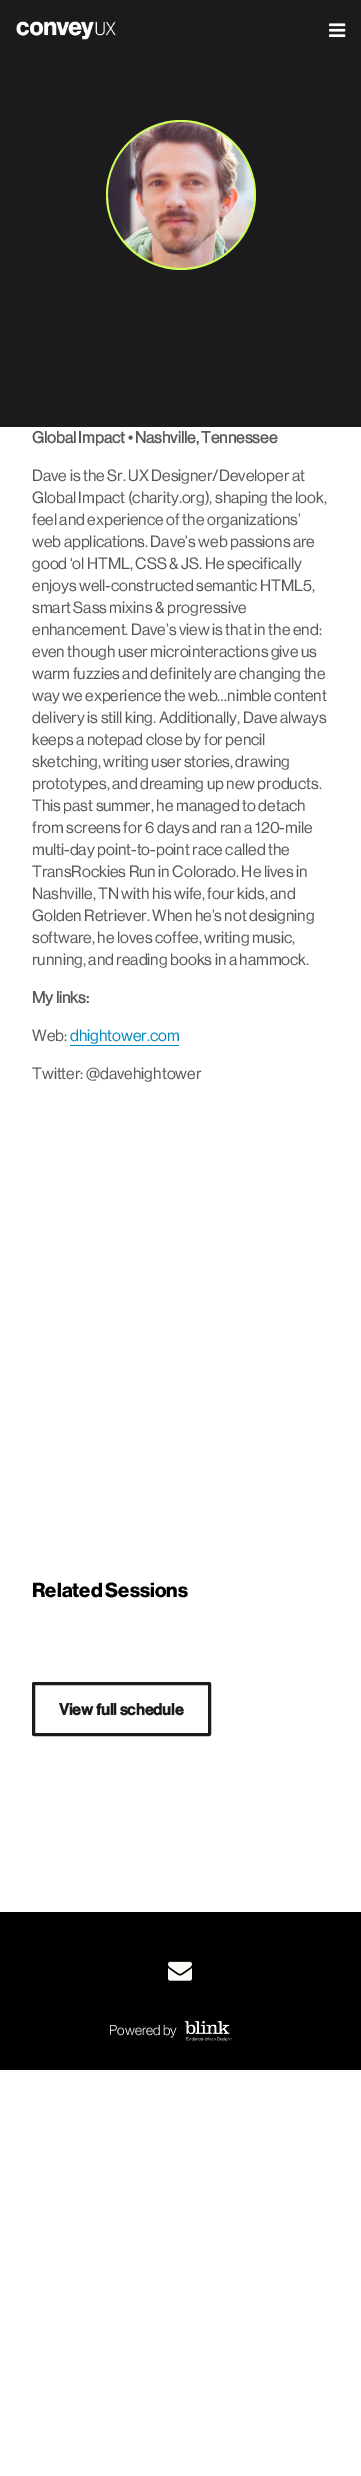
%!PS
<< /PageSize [361 2476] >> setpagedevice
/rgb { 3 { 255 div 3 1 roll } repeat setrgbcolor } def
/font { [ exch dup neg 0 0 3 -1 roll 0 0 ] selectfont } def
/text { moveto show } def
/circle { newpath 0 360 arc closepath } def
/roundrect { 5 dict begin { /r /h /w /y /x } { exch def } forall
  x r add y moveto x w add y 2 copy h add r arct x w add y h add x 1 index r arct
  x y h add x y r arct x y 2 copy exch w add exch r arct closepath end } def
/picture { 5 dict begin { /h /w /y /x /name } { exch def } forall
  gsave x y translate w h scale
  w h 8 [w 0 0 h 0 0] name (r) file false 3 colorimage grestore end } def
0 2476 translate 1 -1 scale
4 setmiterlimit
255 255 255 rgb
0 0 361 2476 rectfill
27 27 27 rgb
0 0 361 427 rectfill
(img_01.rgb) 16 21 100 19 picture
(img_02.rgb) 329 23 17 14 picture
205 255 89 rgb
181 195 75 circle fill
(img_03.rgb) 108 122 146 146 picture
0 136 188 rgb
70 1045 109 1 rectfill
27 27 27 rgb
3 setlinewidth
33.5 1683.5 176 51 0.5 roundrect stroke
0 0 0 rgb
0 1912 361 158 rectfill
(img_04.rgb) 168 1961 24 20 picture
(img_05.rgb) 185 2021 47 20 picture
/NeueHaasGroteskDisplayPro-Bold 16 font
88 88 88 rgb
(Global Impact • Nashville, Tennessee) 32 443 text
/NeueHaasGroteskDisplayPro-Regular 16 font
(Dave is the Sr. UX Designer/Developer at) 32 481 text
(Global Impact \(charity.org\), shaping the look,) 32 503 text
(feel and experience of the organizations’) 32 525 text
(web applications. Dave’s web passions are) 32 547 text
(good ‘ol HTML, CSS & JS. He specifically) 32 569 text
(enjoys well-constructed semantic HTML5,) 32 591 text
(smart Sass mixins & progressive) 32 613 text
(enhancement. Dave’s view is that in the end:) 32 635 text
(even though user microinteractions give us) 32 657 text
(warm fuzzies and definitely are changing the) 32 679 text
(way we experience the web…nimble content) 32 701 text
(delivery is still king. Additionally, Dave always) 32 723 text
(keeps a notepad close by for pencil) 32 745 text
(sketching, writing user stories, drawing) 32 767 text
(prototypes, and dreaming up new products.) 32 789 text
(This past summer, he managed to detach) 32 811 text
(from screens for 6 days and ran a 120-mile) 32 833 text
(multi-day point-to-point race called the) 32 855 text
(TransRockies Run in Colorado. He lives in) 32 877 text
(Nashville, TN with his wife, four kids, and) 32 899 text
(Golden Retriever. When he’s not designing) 32 921 text
(software, he loves coffee, writing music,) 32 943 text
(running, and reading books in a hammock.) 32 965 text
/NeueHaasGroteskDisplayPro-Bold 16 font
(My links:) 32 1003 text
/NeueHaasGroteskDisplayPro-Regular 16 font
(Web:) 32 1041 text
0 136 188 rgb
(dhightower.com) 70 1041 text
88 88 88 rgb
(Twitter: @davehightower) 32 1079 text
/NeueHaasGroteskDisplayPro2-Bold 20 font
0 0 0 rgb
(Related Sessions) 32 1597 text
/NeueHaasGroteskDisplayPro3-Bold 16 font
27 27 27 rgb
(View full schedule) 59 1715 text
/NeueHaasGroteskDisplayPro2-Regular 14 font
255 255 255 rgb
(Powered by) 109 2035 text
showpage
